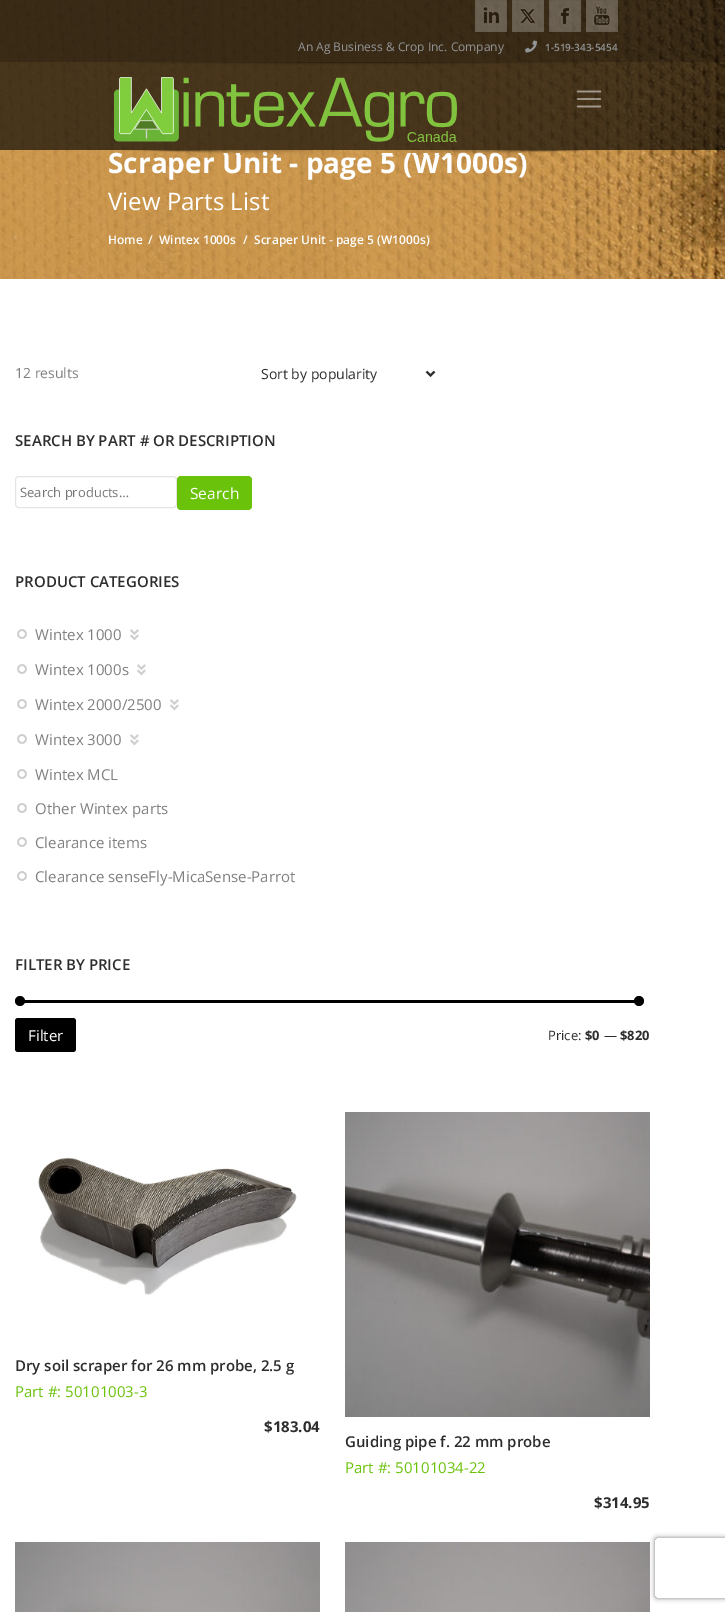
%!PS
<< /PageSize [725 1612] /PageUsesTransparency true >> setpagedevice
/rgb { 3 { 255 div 3 1 roll } repeat setrgbcolor } def
/font { [ exch dup neg 0 0 3 -1 roll 0 0 ] selectfont } def
/text { moveto show } def
/alpha { dup .setfillconstantalpha .setstrokeconstantalpha } def
/circle { newpath 0 360 arc closepath } def
/roundrect { 5 dict begin { /r /h /w /y /x } { exch def } forall
  x r add y moveto x w add y 2 copy h add r arct x w add y h add x 1 index r arct
  x y h add x y r arct x y 2 copy exch w add exch r arct closepath end } def
/shadow { 12 dict begin { /a /b /q /h /w /y /x } { exch def } forall gsave /was 0 def
  9 -2 -9 { dup b mul 4 div /e exch def 1 sub .425 mul 2.718 exch exp 1 add a .99 .min exch div /now exch def
    1 1 now sub 1 was sub div sub alpha /was now def
    w h .min e 2 mul add 0 gt { x e sub y e sub w e 2 mul add h e 2 mul add
      q e add b .6 mul add w h .min 2 div e add .min 0 .max roundrect fill } if } for grestore end } def
/picture { 5 dict begin { /h /w /y /x /name } { exch def } forall
  gsave x y translate w h scale
  w h 8 [w 0 0 h 0 0] name (r) file false 3 colorimage grestore end } def
0 .pushpdf14devicefilter
0 1612 translate 1 -1 scale
4 setmiterlimit
255 255 255 rgb
0 0 725 1612 rectfill
(img_10.rgb) 0 0 725 279 picture
0.65 alpha
0 0 0 rgb
0 0 725 150 rectfill
0.2 alpha
0 0 725 62 rectfill
1 alpha
(img_01.rgb) 475 0 32 32 picture
(img_02.rgb) 512 0 32 32 picture
(img_03.rgb) 549 0 32 32 picture
(img_04.rgb) 586 0 32 32 picture
(img_05.rgb) 525 40 12 13 picture
(img_06.rgb) 128 62 463 3 picture
(img_07.rgb) 114 77 343 65 picture
(img_08.rgb) 576 90 26 18 picture
45 45 45 rgb
2 setlinewidth
426.5 371.5 moveto 4 4 rlineto 4 -4 rlineto stroke
228 228 228 rgb
1 setlinewidth
15.5 476.5 161 31 3.5 roundrect stroke
107 194 10 rgb
177 476 75 34 4 roundrect fill
(img_11.rgb) 17 629 10 10 picture
(img_12.rgb) 130 629 9 12 picture
(img_11.rgb) 17 664 10 10 picture
(img_12.rgb) 137 664 9 12 picture
(img_11.rgb) 17 699 10 10 picture
(img_12.rgb) 170 699 9 12 picture
(img_11.rgb) 17 734 10 10 picture
(img_12.rgb) 130 734 9 12 picture
(img_11.rgb) 17 769 10 10 picture
(img_11.rgb) 17 803 10 10 picture
(img_11.rgb) 17 837 10 10 picture
(img_11.rgb) 17 871 10 10 picture
0 0 0 rgb
23 1000 619 3 rectfill
20 1001 5 circle fill
639 1001 5 circle fill
15 1018 61 34 3 roundrect fill
(img_13.rgb) 38 1157 259 138 picture
(img_14.rgb) 345 1112 305 305 picture
(img_15.rgb) 15 1542 305 70 picture
(img_16.rgb) 345 1542 305 70 picture
gsave
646 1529 moveto 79 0 rlineto 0 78 rlineto -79 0 rlineto closepath 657 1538 moveto 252 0 rlineto 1 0 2 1 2 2 rcurveto 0 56 rlineto 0 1 -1 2 -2 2 rcurveto -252 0 rlineto -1 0 -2 -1 -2 -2 rcurveto 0 -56 rlineto 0 -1 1 -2 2 -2 rcurveto closepath eoclip newpath
128 128 128 rgb
655 1538 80 60 2 2.5 1 shadow
grestore
/OpenSans-Regular 12 font
146 149 150 rgb
(An Ag Business & Crop Inc. Company) 298 51 text
/OpenSans-SemiBold 10 font
(1-519-343-5454) 545 51 text
/OpenSans-Bold 28 font
255 255 255 rgb
(Scraper Unit - page 5 \(W1000s\)) 108 173 text
(img_09.rgb) 126 150 475 5 picture
/OpenSans-Regular 24 font
(View Parts List) 108 210 text
/OpenSans-SemiBold 12 font
(Home) 108 244 text
(/) 148 244 text
(Wintex 1000s) 159 244 text
(/  Scraper Unit - page 5 \(W1000s\)) 243 244 text
/OpenSans-Regular 14 font
128 128 128 rgb
(12 results) 15 378 text
45 45 45 rgb
(Sort by popularity) 261 379 text
/OpenSans-SemiBold 15 font
(SEARCH BY PART # OR DESCRIPTION) 15 446 text
/OpenSans-Regular 13 font
117 117 117 rgb
(Search products…) 20 497 text
/OpenSans-Regular 15.5 font
255 255 255 rgb
(Search) 190 499 text
/OpenSans-SemiBold 15 font
45 45 45 rgb
(PRODUCT CATEGORIES) 15 587 text
/OpenSans-Regular 15 font
128 128 128 rgb
(Wintex 1000) 35 640 text
(Wintex 1000s) 35 675 text
(Wintex 2000/2500) 35 710 text
(Wintex 3000) 35 745 text
(Wintex MCL) 35 780 text
(Other Wintex parts) 35 814 text
(Clearance items) 35 848 text
(Clearance senseFly-MicaSense-Parrot) 35 882 text
/OpenSans-SemiBold 15 font
45 45 45 rgb
(FILTER BY PRICE) 15 970 text
/OpenSans-Regular 15 font
255 255 255 rgb
(Filter) 28 1041 text
/OpenSans-Regular 13 font
45 45 45 rgb
(Price:) 548 1040 text
/OpenSans-Bold 13 font
($0) 585 1040 text
/OpenSans-Regular 13 font
(—) 604 1040 text
/OpenSans-Bold 13 font
($820) 620 1040 text
/OpenSans-SemiBold 15 font
(Dry soil scraper for 26 mm probe, 2.5 g) 15 1371 text
/OpenSans-Regular 15 font
107 194 10 rgb
(Part #: 50101003-3) 15 1397 text
/OpenSans-Bold 15 font
45 45 45 rgb
($183.04) 264 1432 text
/OpenSans-SemiBold 15 font
(Guiding pipe f. 22 mm probe) 345 1447 text
/OpenSans-Regular 15 font
107 194 10 rgb
(Part #: 50101034-22) 345 1473 text
/OpenSans-Bold 15 font
45 45 45 rgb
($314.95) 594 1508 text
.poppdf14devicefilter showpage
